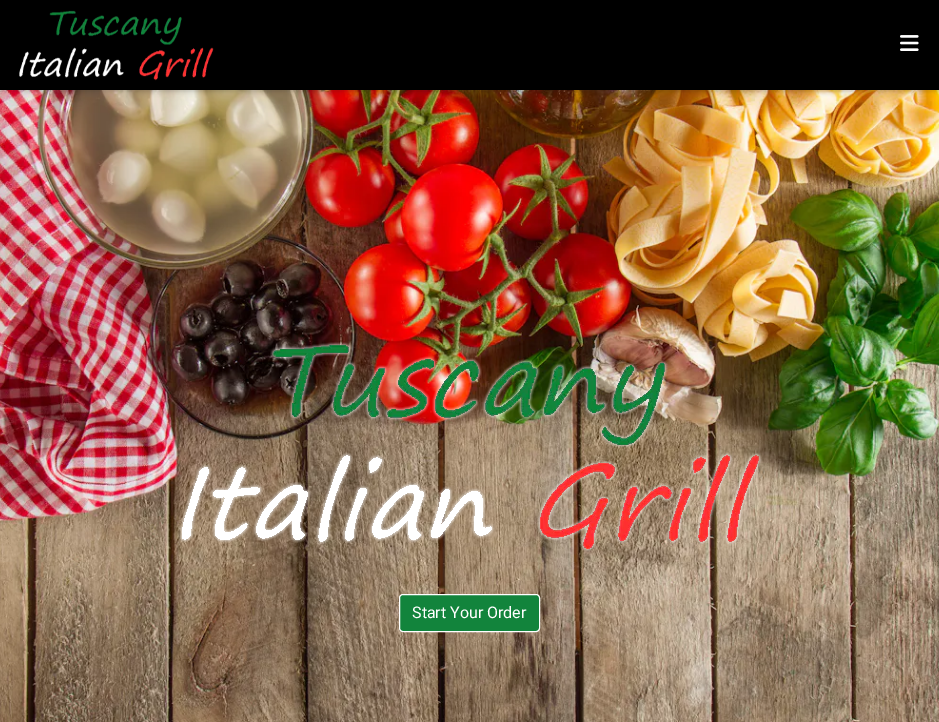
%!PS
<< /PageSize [939 722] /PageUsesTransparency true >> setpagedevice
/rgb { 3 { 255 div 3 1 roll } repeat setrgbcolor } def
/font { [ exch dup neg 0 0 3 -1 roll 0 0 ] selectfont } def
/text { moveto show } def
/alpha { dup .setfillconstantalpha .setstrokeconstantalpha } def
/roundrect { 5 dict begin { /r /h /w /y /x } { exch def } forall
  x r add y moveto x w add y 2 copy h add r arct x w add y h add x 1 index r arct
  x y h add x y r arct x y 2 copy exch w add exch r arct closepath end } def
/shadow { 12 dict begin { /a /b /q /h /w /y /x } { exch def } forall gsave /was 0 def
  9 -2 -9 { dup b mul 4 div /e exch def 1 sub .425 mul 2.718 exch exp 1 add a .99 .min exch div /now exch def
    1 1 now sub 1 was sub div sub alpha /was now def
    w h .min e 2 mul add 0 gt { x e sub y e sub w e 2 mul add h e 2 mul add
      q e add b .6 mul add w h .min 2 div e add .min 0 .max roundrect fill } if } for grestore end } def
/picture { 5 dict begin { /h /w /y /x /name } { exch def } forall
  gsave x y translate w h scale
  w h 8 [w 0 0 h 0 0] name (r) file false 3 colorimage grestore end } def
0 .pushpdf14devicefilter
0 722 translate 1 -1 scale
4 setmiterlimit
255 255 255 rgb
0 0 939 722 rectfill
(img_03.rgb) 0 90 939 632 picture
32 33 36 rgb
0 1 939 90 0 3 0.28 shadow
0 0 0 rgb
0 0 939 90 rectfill
(img_01.rgb) 19 10 195 71 picture
(img_02.rgb) 900 35 19 16 picture
(img_04.rgb) 179 342 583 210 picture
18 132 60 rgb
399.5 594.5 140 37 3.5 roundrect gsave fill grestore
255 255 255 rgb
stroke
/Roboto-Regular 16 font
(Start Your Order) 412 618 text
.poppdf14devicefilter showpage
